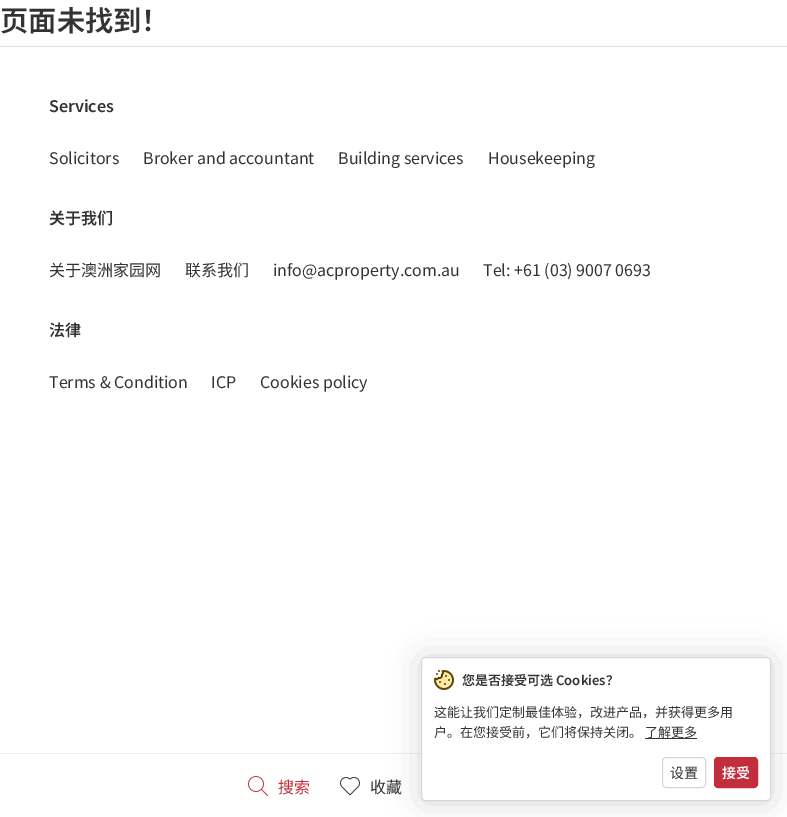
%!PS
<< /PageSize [787 817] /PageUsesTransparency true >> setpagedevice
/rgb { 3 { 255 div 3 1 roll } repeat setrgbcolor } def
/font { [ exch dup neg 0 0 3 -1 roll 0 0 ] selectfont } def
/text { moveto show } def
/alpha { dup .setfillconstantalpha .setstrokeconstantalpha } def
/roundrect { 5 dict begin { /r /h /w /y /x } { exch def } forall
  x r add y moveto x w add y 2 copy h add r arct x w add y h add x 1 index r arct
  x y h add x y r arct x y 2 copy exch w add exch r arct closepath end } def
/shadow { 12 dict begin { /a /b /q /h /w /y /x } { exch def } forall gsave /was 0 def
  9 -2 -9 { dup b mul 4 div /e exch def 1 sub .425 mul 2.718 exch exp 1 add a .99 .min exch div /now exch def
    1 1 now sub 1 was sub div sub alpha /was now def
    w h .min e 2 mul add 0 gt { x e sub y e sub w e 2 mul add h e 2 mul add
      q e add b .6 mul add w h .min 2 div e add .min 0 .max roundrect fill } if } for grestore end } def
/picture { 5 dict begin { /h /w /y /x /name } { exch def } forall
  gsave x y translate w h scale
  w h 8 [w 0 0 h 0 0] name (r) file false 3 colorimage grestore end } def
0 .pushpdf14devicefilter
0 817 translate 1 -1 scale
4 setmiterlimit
255 255 255 rgb
0 0 787 817 rectfill
221 221 221 rgb
0 46 787 1 rectfill
238 238 238 rgb
0 753 787 1 rectfill
0 0 0 rgb
421 658 350 144 4 16 0.16 shadow
255 255 255 rgb
421.5 657.5 349 143 3.5 roundrect gsave fill grestore
216 216 216 rgb
stroke
(img_01.rgb) 434 670 20 20 picture
51 51 51 rgb
645 738 52 1 rectfill
216 216 216 rgb
662.5 757.5 43 30 3.5 roundrect stroke
195 46 60 rgb
714.5 757.5 43 30 3.5 roundrect gsave fill grestore
stroke
(img_02.rgb) 248 776 20 20 picture
(img_03.rgb) 340 777 20 19 picture
/NotoSansSC-SemiBold 28.25 font
51 51 51 rgb
(页面未找到！) 0 31 text
/NotoSansSC-SemiBold 16 font
(Services) 49 112 text
/NotoSansSC-Regular 16 font
(Solicitors) 49 164 text
(Broker and accountant) 143 164 text
(Building services) 338 164 text
(Housekeeping) 488 164 text
/NotoSansSC-SemiBold 16 font
(关于我们) 49 224 text
/NotoSansSC-Regular 16 font
(关于澳洲家园网) 49 276 text
(联系我们) 185 276 text
(info@acproperty.com.au) 273 276 text
(Tel: +61 \(03\) 9007 0693) 483 276 text
/NotoSansSC-SemiBold 16 font
(法律) 49 336 text
/NotoSansSC-Regular 16 font
(Terms & Condition) 49 388 text
(ICP) 211 388 text
(Cookies policy) 260 388 text
/NotoSansSC-SemiBold 13 font
(您是否接受可选 Cookies？) 462 685 text
/NotoSansSC-Regular 13 font
(这能让我们定制最佳体验，改进产品，并获得更多用) 434 717 text
(户。在您接受前，它们将保持关闭。) 434 737 text
(了解更多) 645 737 text
/NotoSansSC-Regular 14 font
(设置) 670 778 text
/NotoSansSC-SemiBold 14 font
255 255 255 rgb
(接受) 722 778 text
/NotoSansSC-Regular 16 font
195 46 60 rgb
(搜索) 278 793 text
51 51 51 rgb
(收藏) 370 793 text
.poppdf14devicefilter showpage
